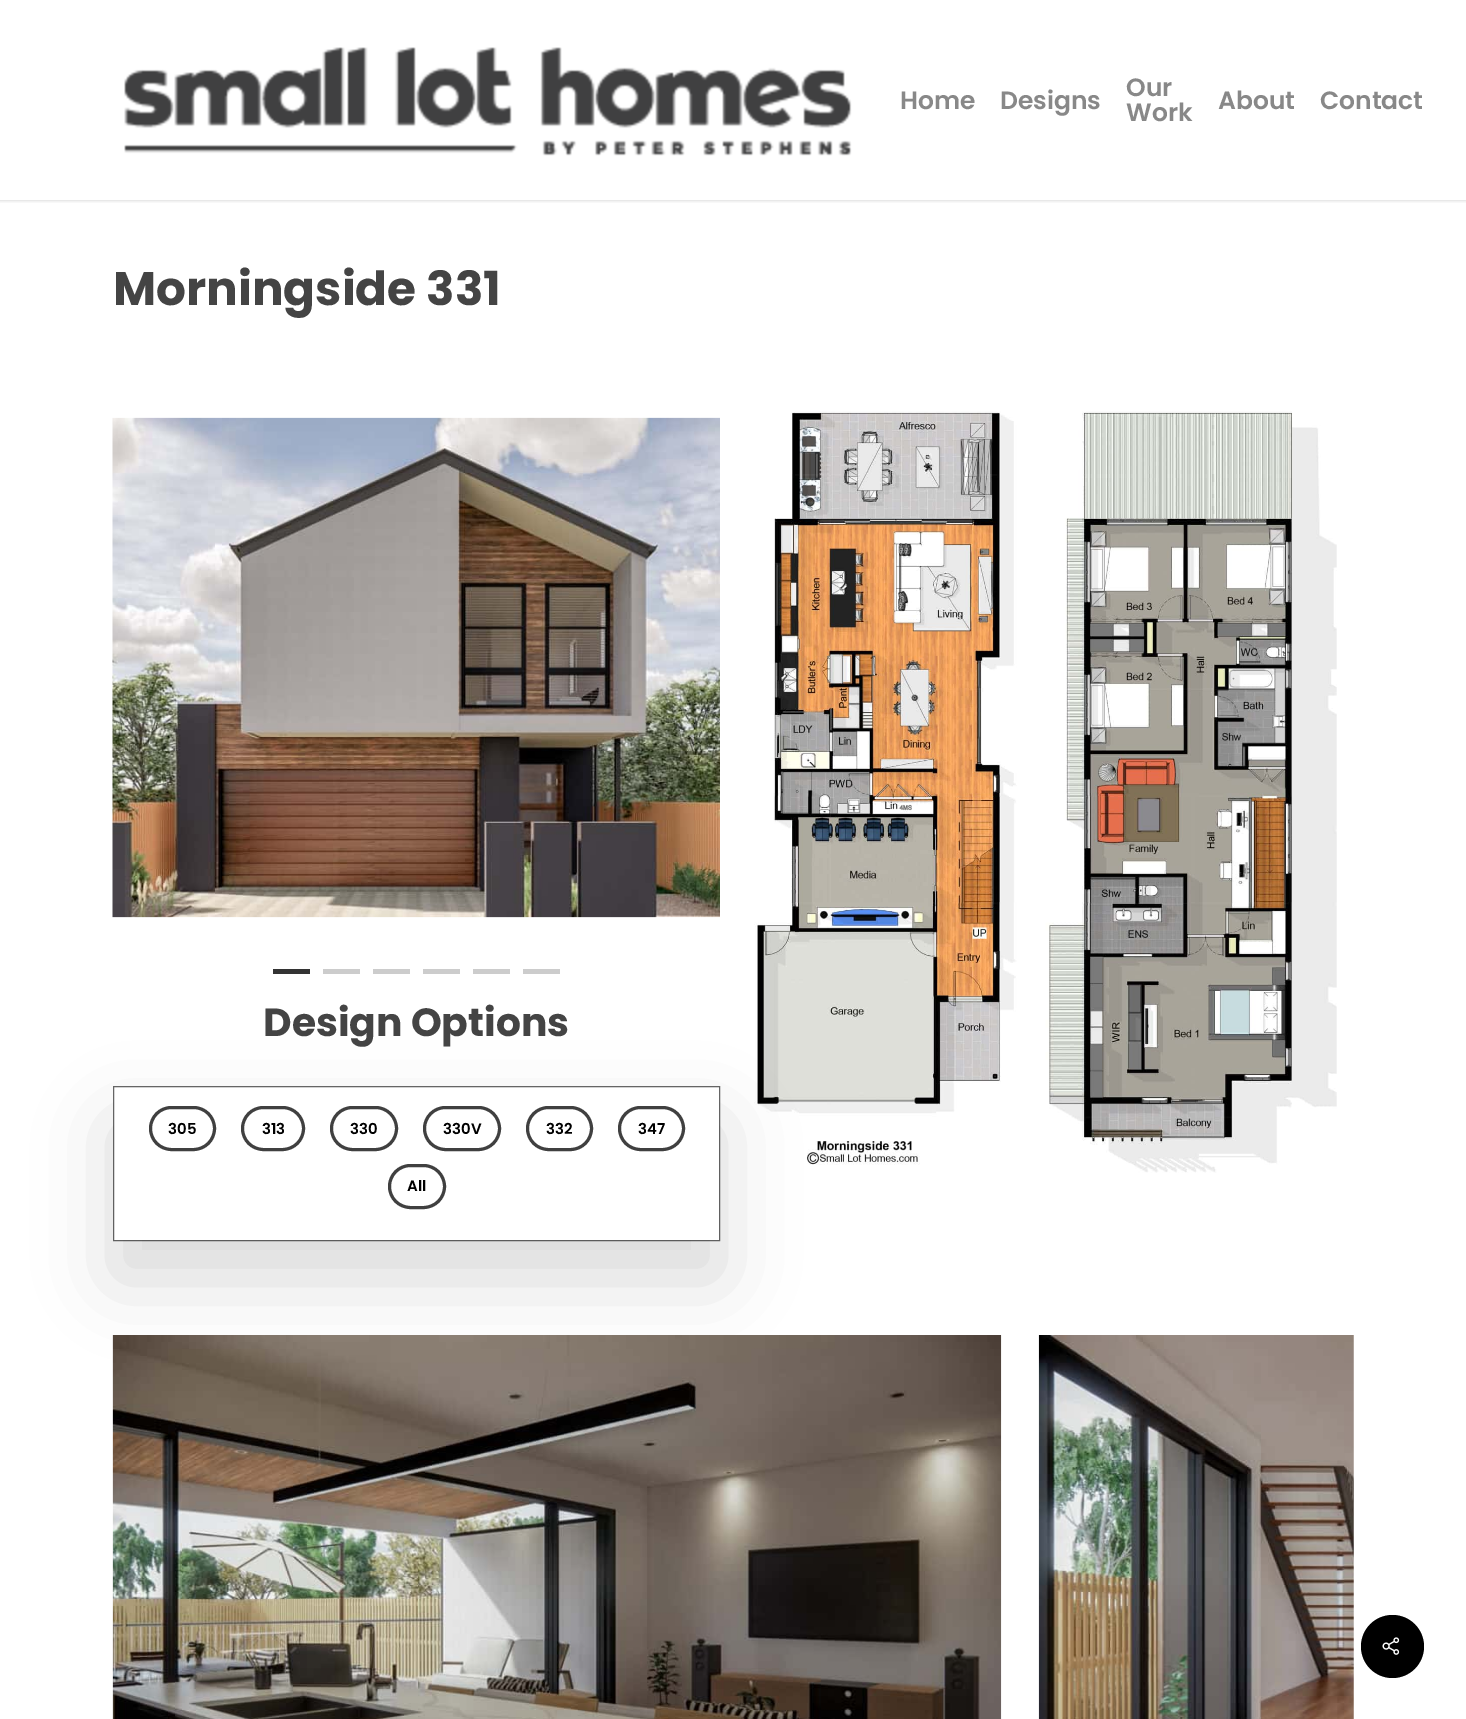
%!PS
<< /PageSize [1466 1719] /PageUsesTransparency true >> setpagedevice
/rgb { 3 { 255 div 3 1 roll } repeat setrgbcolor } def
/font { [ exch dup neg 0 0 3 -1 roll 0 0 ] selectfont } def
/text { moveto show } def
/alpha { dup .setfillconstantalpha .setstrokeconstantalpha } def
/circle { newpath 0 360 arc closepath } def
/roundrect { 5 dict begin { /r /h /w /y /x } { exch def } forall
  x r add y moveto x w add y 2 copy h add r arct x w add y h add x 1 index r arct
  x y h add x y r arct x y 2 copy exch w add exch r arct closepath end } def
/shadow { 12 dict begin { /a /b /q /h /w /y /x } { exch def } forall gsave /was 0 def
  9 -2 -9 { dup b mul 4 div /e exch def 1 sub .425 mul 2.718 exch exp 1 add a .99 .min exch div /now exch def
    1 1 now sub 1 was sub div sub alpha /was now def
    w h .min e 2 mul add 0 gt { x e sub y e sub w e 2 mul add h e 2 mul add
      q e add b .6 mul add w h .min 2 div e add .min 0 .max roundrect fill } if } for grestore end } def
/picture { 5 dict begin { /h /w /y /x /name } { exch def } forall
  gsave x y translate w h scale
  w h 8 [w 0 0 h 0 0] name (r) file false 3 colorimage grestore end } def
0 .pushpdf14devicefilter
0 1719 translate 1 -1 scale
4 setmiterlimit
255 255 255 rgb
0 0 1466 1719 rectfill
gsave
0 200 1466 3 rectclip
0 0 0 rgb
0 0 1466 200 0 2 0.22 shadow
grestore
(img_01.rgb) 124 47 728 109 picture
(img_02.rgb) 112 417 608 501 picture
51 51 51 rgb
273 969 37 5 rectfill
204 204 204 rgb
323 969 37 5 rectfill
373 969 37 5 rectfill
423 969 37 5 rectfill
473 969 37 5 rectfill
523 969 37 5 rectfill
103 103 103 rgb
113.5 1086.5 606 154 rectstroke
(img_03.rgb) 754 411 583 762 picture
gsave
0 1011 moveto 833 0 rlineto 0 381 rlineto -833 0 rlineto closepath 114 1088 moveto 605 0 rlineto 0 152 rlineto -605 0 rlineto closepath eoclip newpath
0 0 0 rgb
114 1125 605 153 0 37.5 0.15 shadow
grestore
64 64 64 rgb
3 setlinewidth
150.5 1107.5 64 42 21 roundrect stroke
242.5 1107.5 61 42 21 roundrect stroke
331.5 1107.5 65 42 21 roundrect stroke
424.5 1107.5 75 42 21 roundrect stroke
527.5 1107.5 64 42 21 roundrect stroke
619.5 1107.5 64 42 21 roundrect stroke
389.5 1165.5 55 42 21 roundrect stroke
(img_04.rgb) 112 1335 890 384 picture
(img_05.rgb) 1038 1335 316 384 picture
0 0 0 rgb
1392.5 1646.5 31.5 circle fill
(img_06.rgb) 1382 1637 18 18 picture
/Poppins-SemiBold 25 font
136 136 136 rgb
(Home) 900 109 text
(Designs) 1000 109 text
(Our) 1126 96 text
(Work) 1126 121 text
(About) 1218 109 text
(Contact) 1320 109 text
/Poppins-Bold 47 font
68 68 68 rgb
(Morningside 331) 113 305 text
/Poppins-Bold 39.25 font
(Design Options) 263 1036 text
/Poppins-SemiBold 15 font
0 0 0 rgb
(305) 168 1134 text
(313) 262 1134 text
(330) 350 1134 text
(330V) 443 1134 text
(332) 546 1134 text
(347) 638 1134 text
(All) 407 1191 text
.poppdf14devicefilter showpage
